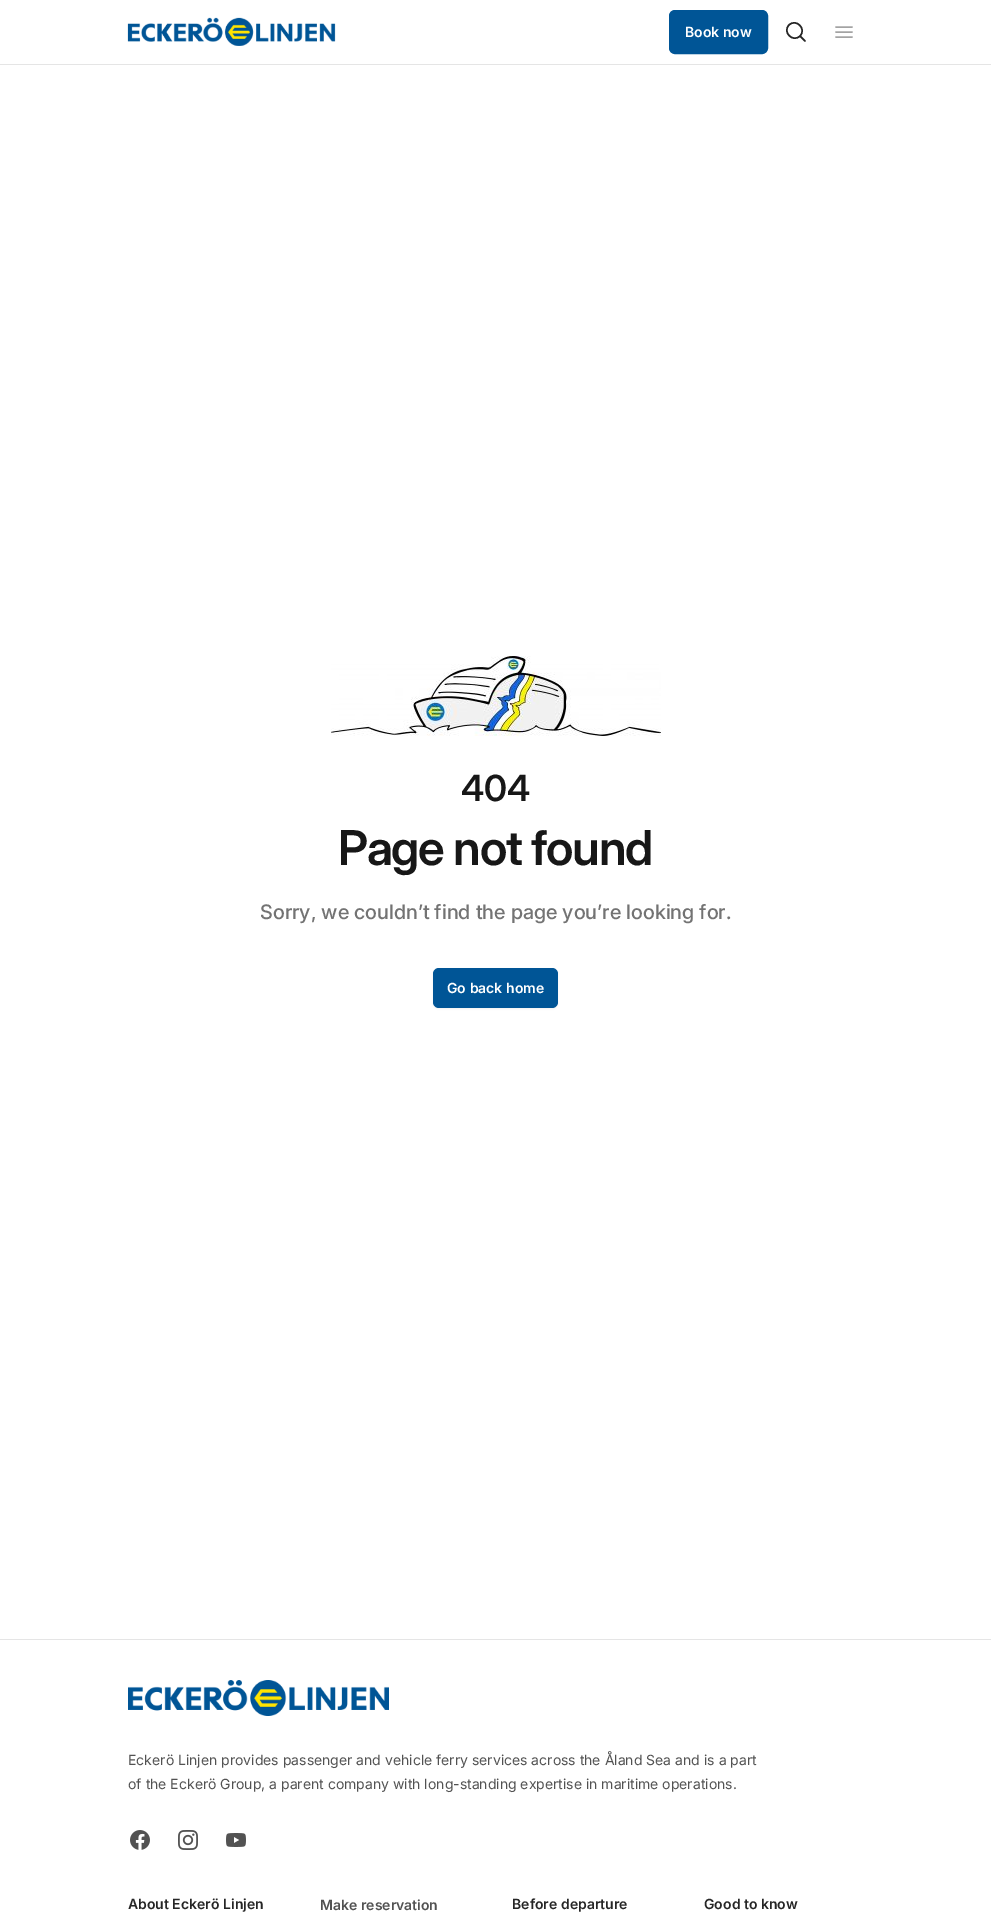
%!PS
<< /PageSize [991 1917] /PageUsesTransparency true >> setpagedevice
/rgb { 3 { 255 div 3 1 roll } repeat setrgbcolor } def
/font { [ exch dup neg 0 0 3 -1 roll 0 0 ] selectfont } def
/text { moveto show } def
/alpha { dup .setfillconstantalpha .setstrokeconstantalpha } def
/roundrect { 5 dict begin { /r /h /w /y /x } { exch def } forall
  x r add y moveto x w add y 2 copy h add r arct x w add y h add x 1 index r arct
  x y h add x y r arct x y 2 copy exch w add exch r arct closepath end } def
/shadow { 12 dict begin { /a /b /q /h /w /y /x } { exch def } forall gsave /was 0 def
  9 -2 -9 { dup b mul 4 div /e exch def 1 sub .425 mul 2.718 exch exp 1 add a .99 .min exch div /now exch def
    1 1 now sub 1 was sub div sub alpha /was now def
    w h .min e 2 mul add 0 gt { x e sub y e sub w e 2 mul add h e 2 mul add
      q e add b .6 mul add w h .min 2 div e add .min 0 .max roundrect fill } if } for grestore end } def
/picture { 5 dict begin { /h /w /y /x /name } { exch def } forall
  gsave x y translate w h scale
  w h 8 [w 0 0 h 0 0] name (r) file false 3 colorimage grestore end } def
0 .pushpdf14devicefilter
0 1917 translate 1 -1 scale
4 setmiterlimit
255 255 255 rgb
0 0 991 1917 rectfill
229 229 229 rgb
0 64 991 1 rectfill
(img_01.rgb) 127 17 209 29 picture
0 85 150 rgb
670 11 97 42 5 roundrect gsave fill grestore
2 setlinewidth
stroke
38 38 38 rgb
1.5 setlinewidth
1 setlinecap
1 setlinejoin
805 41 moveto -5 -5 rlineto 800 36 moveto 7 -7 -4 -18 -11 -11 rcurveto -7 7 4 18 11 11 rcurveto closepath stroke
163 163 163 rgb
836 27 moveto 16 0 rlineto 836 32 moveto 16 0 rlineto 836 37 moveto 16 0 rlineto stroke
(img_02.rgb) 331 656 330 80 picture
0 0 0 rgb
433 969 125 40 6 1 0.05 shadow
0 85 150 rgb
433 968 125 40 6 roundrect fill
229 229 229 rgb
0 1639 991 1 rectfill
(img_03.rgb) 128 1680 261 36 picture
(img_04.rgb) 130 1830 20 20 picture
(img_05.rgb) 178 1830 20 20 picture
(img_06.rgb) 226 1833 20 14 picture
/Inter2-SemiBold 14 font
255 255 255 rgb
(Book now) 685 37 text
/Inter-SemiBold 36 font
23 23 23 rgb
(404) 461 801 text
/Inter-SemiBold 48 font
338 865 moveto -1.25 0 (Page not found) ashow
/Inter-Medium 20 font
115 115 115 rgb
(Sorry, we couldn’t find the page you’re looking for.) 260 919 text
/Inter2-SemiBold 14 font
255 255 255 rgb
(Go back home) 447 993 text
/Inter-Regular 14 font
82 82 82 rgb
(Eckerö Linjen provides passenger and vehicle ferry services across the Åland Sea and is a part) 128 1765 text
(of the Eckerö Group, a parent company with long-standing expertise in maritime operations.) 128 1789 text
/Inter2-SemiBold 14 font
38 38 38 rgb
(About Eckerö Linjen) 128 1909 text
82 82 82 rgb
(Make reservation) 320 1910 text
38 38 38 rgb
(Before departure) 512 1909 text
(Good to know) 704 1909 text
.poppdf14devicefilter showpage
